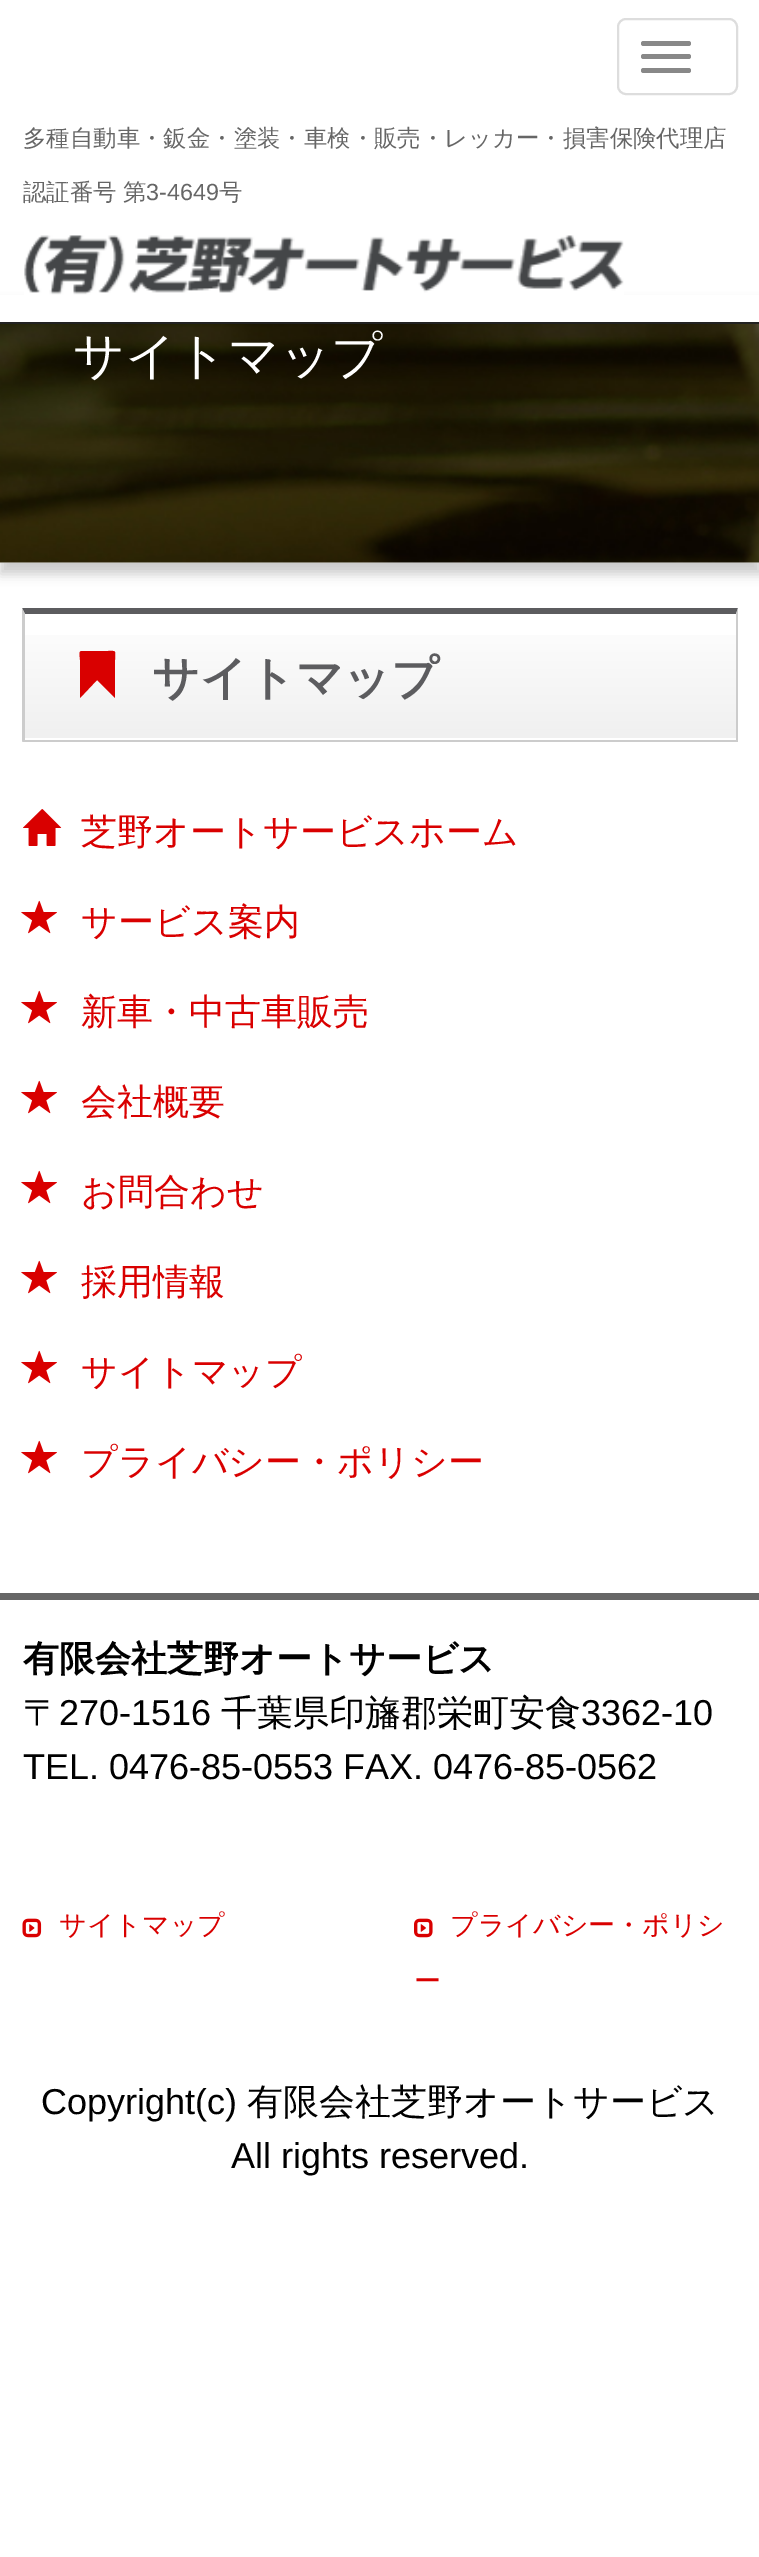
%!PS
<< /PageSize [759 2557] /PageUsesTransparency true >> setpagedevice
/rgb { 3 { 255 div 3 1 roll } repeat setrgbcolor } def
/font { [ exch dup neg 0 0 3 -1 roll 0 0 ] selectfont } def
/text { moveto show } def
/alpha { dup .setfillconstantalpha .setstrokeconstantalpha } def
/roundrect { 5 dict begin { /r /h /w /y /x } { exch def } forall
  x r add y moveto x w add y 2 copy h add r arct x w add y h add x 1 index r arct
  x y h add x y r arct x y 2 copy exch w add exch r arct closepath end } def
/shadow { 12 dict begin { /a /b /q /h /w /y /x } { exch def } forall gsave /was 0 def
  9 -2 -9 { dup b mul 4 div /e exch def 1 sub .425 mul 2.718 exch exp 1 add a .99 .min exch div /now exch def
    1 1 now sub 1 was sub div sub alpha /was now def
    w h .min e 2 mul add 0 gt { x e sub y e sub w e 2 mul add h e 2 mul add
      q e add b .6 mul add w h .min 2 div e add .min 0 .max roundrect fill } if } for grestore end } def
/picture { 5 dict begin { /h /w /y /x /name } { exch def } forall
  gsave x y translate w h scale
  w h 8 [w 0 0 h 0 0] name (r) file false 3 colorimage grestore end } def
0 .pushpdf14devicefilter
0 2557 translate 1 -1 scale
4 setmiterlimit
255 255 255 rgb
0 0 759 2557 rectfill
0 0 0 rgb
0 304 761 270 0 5.5 0.2 shadow
255 255 255 rgb
0 295 759 27 rectfill
34 34 34 rgb
0 322 759 2 rectfill
221 221 221 rgb
2 setlinewidth
618 19 119 75 8 roundrect stroke
136 136 136 rgb
641 41 50 5 2.5 roundrect fill
641 54 50 5 2.5 roundrect fill
641 68 50 5 2.5 roundrect fill
(img_01.rgb) 24 235 600 60 picture
(img_02.rgb) 0 324 759 239 picture
gsave 25 635 moveto 711 0 rlineto 0 103 rlineto -711 0 rlineto closepath clip newpath
<< /ShadingType 2 /ColorSpace /DeviceRGB /Coords [380 614 380 740] /Extend [true true] /Function << /FunctionType 2 /Domain [0 1] /C0 [1 1 1] /C1 [0.941 0.941 0.941] /N 1 >> >> shfill grestore
92 92 95 rgb
22 608 moveto 716 0 rlineto -2 6 rlineto -711 0 rlineto closepath fill
204 204 204 rgb
738 608 moveto 0 134 rlineto -2 -2 rlineto 0 -126 rlineto closepath fill
23 740 715 2 rectfill
22 742 moveto 0 -134 rlineto 3 6 rlineto 0 126 rlineto closepath fill
217 0 0 rgb
82 651 moveto 26 0 rlineto 9 0 7 -1 7 9 rcurveto 0 38 rlineto -18 -18 rlineto -17 18 rlineto 0 -38 rlineto 0 -4 -2 -9 2 -9 rcurveto closepath fill
(img_03.rgb) 23 809 39 37 picture
(img_04.rgb) 21 900 36 34 picture
(img_04.rgb) 21 990 36 34 picture
(img_04.rgb) 21 1080 36 34 picture
(img_04.rgb) 21 1170 36 34 picture
(img_04.rgb) 21 1260 36 34 picture
(img_04.rgb) 21 1350 36 34 picture
(img_04.rgb) 21 1440 36 34 picture
102 102 102 rgb
0 1593 759 7 rectfill
(img_05.rgb) 22 1918 20 20 picture
(img_06.rgb) 414 1918 19 20 picture
/WenQuanYiZenHei-Medium 23.4 font
(多種自動車・鈑金・塗装・車検・販売・レッカー・損害保険代理店) 23 146 text
23 200 moveto -1 0 32 (認証番号 第) widthshow
/LiberationSans-Regular 23.4 font
(3-4649) 146 200 text
/WenQuanYiZenHei-Medium 23.4 font
(号) 219 200 text
/WenQuanYiZenHei-Medium 50.5 font
255 255 255 rgb
(サイトマップ) 73 373 text
/WenQuanYiZenHei-Bold 46.75 font
92 92 95 rgb
(サイトマップ) 152 694 text
/WenQuanYiZenHei-Medium 36 font
217 0 0 rgb
(芝野オートサービスホーム) 81 844 text
(サービス案内) 81 934 text
(新車・中古車販売) 81 1024 text
(会社概要) 81 1114 text
(お問合わせ) 81 1204 text
(採用情報) 81 1294 text
(サイトマップ) 81 1384 text
(プライバシー・ポリシー) 81 1474 text
/WenQuanYiZenHei-Bold 36 font
0 0 0 rgb
(有限会社芝野オートサービス) 23 1671 text
/WenQuanYiZenHei-Medium 36 font
(〒) 23 1725 text
/LiberationSans-Regular 36 font
(270-1516) 59 1725 text
/WenQuanYiZenHei-Medium 36 font
(千葉県印旛郡栄町安食) 221 1725 text
/LiberationSans-Regular 36 font
(3362-10) 581 1725 text
(TEL. 0476-85-0553 FAX. 0476-85-0562) 23 1779 text
/WenQuanYiZenHei-Medium 27 font
217 0 0 rgb
(サイトマップ) 59 1934 text
(プライバシー・ポリシ) 450 1934 text
(ー) 414 1990 text
/LiberationSans-Regular 36 font
0 0 0 rgb
(Copyright\(c\)) 41 2114 text
/WenQuanYiZenHei-Medium 36 font
(有限会社芝野オートサービス) 247 2114 text
/LiberationSans-Regular 36 font
(All rights reserved.) 231 2168 text
.poppdf14devicefilter showpage
